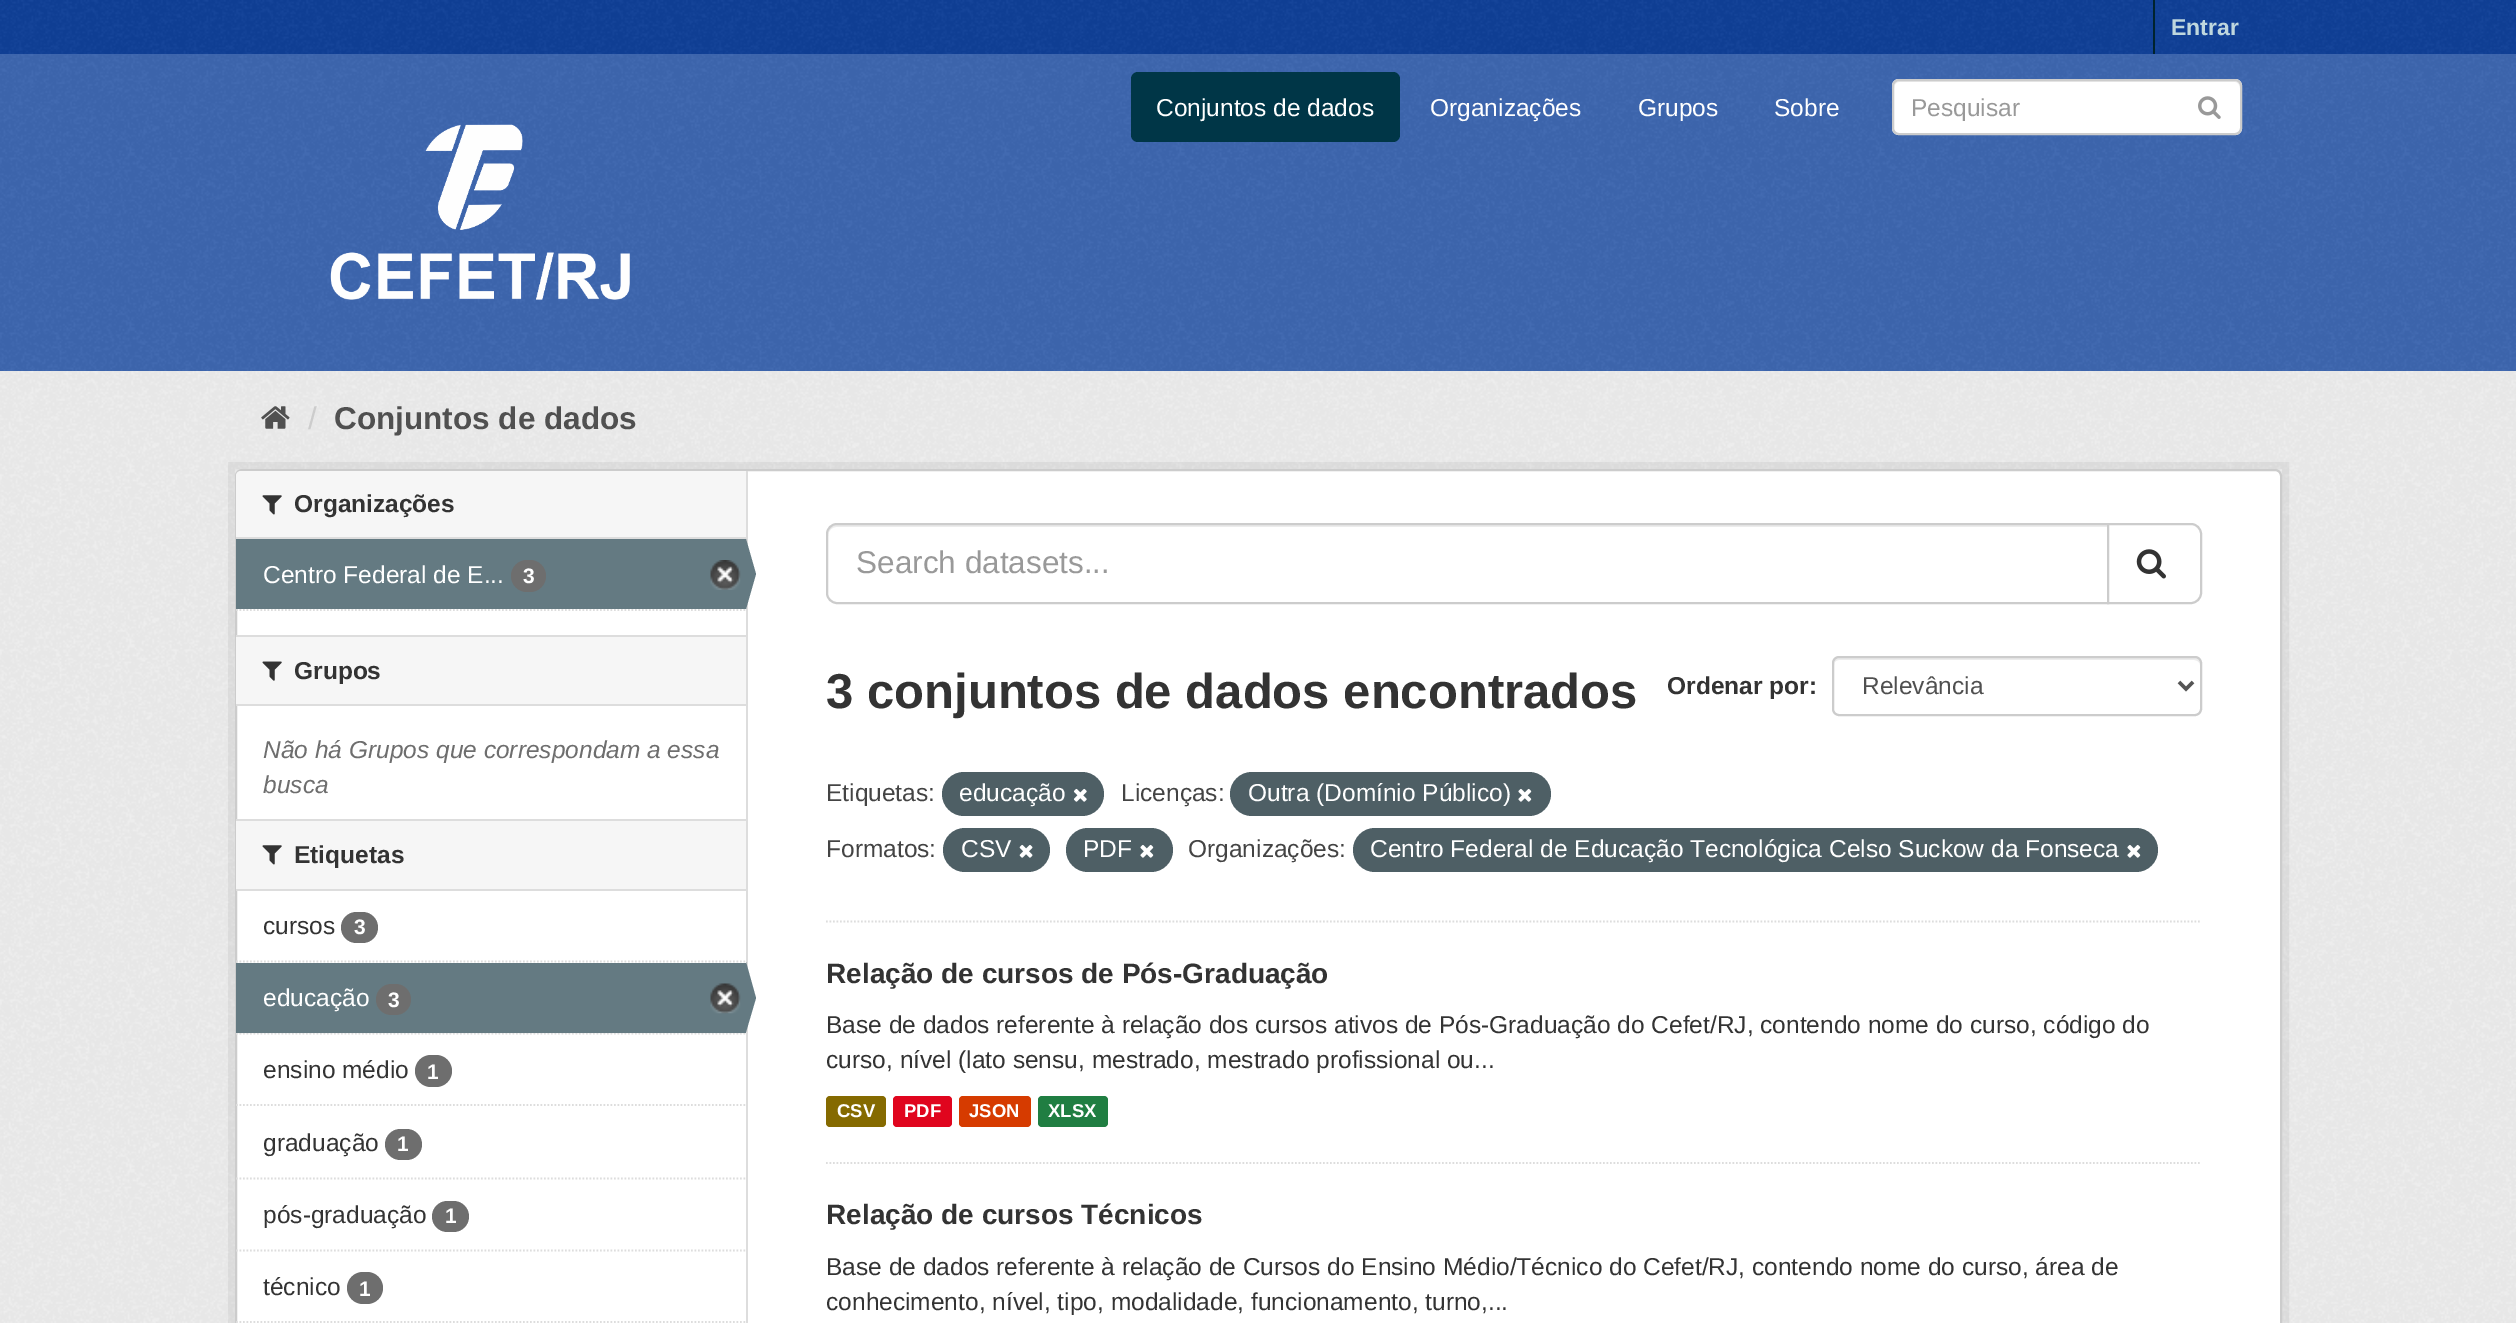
%!PS
<< /PageSize [2516 1323] /PageUsesTransparency true >> setpagedevice
/rgb { 3 { 255 div 3 1 roll } repeat setrgbcolor } def
/font { [ exch dup neg 0 0 3 -1 roll 0 0 ] selectfont } def
/text { moveto show } def
/alpha { dup .setfillconstantalpha .setstrokeconstantalpha } def
/roundrect { 5 dict begin { /r /h /w /y /x } { exch def } forall
  x r add y moveto x w add y 2 copy h add r arct x w add y h add x 1 index r arct
  x y h add x y r arct x y 2 copy exch w add exch r arct closepath end } def
/picture { 5 dict begin { /h /w /y /x /name } { exch def } forall
  gsave x y translate w h scale
  w h 8 [w 0 0 h 0 0] name (r) file false 3 colorimage grestore end } def
0 .pushpdf14devicefilter
0 1323 translate 1 -1 scale
4 setmiterlimit
15 64 152 rgb
0 0 2516 1323 rectfill
(img_01.rgb) 0 0 2516 54 picture
0 35 46 rgb
2153 0 2 54 rectfill
62 103 177 rgb
0 54 2516 317 rectfill
(img_02.rgb) 0 54 2516 317 picture
0 54 71 rgb
1131 72 269 70 7 roundrect fill
255 255 255 rgb
1892 79 350 56 7 roundrect fill
236 236 236 rgb
1899 82 moveto 336 0 rlineto 3 0 5 3 5 6 rcurveto 0 -3 -1 -7 -5 -7 rcurveto -336 0 rlineto -4 0 -5 4 -5 7 rcurveto 0 -3 2 -6 5 -6 rcurveto closepath fill
204 204 204 rgb
2 setlinewidth
1893 80 348 54 6 roundrect stroke
(img_03.rgb) 2198 96 23 23 picture
(img_04.rgb) 330 124 300 176 picture
238 238 238 rgb
0 371 2516 952 rectfill
(img_05.rgb) 0 371 2516 952 picture
(img_06.rgb) 261 406 29 23 picture
0.05 alpha
0 0 0 rgb
7 setlinewidth
231.5 465.5 2054 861 rectstroke
1 alpha
255 255 255 rgb
236 470 2045 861 6 roundrect gsave fill grestore
204 204 204 rgb
2 setlinewidth
stroke
246 246 246 rgb
241 471 moveto 505 0 rlineto 0 68 rlineto -510 0 rlineto 0 -63 rlineto 0 -3 2 -5 5 -5 rcurveto closepath fill
221 221 221 rgb
236 537 510 2 rectfill
(img_07.rgb) 262 495 20 20 picture
100 122 130 rgb
236 539 510 70 rectfill
110 110 110 rgb
511 560 35 32 16 roundrect fill
(img_08.rgb) 710 560 31 30 picture
221 221 221 rgb
746 471 2 852 rectfill
100 122 130 rgb
746 609 moveto 0 -70 rlineto 10 35 rlineto closepath fill
221 221 221 rgb
1.8 setlinewidth
[1.75 1.75] 0 setdash
236 610 moveto 509.5 0 rlineto stroke
246 246 246 rgb
236 637 510 67 rectfill
221 221 221 rgb
236 635 510 2 rectfill
236 704 510 2 rectfill
(img_09.rgb) 262 661 20 20 picture
246 246 246 rgb
236 821 510 68 rectfill
221 221 221 rgb
236 819 510 2 rectfill
236 889 510 2 rectfill
(img_07.rgb) 262 845 20 20 picture
236 961.5 moveto 509.5 0 rlineto stroke
110 110 110 rgb
341 912 37 31 15.5 roundrect fill
246 246 246 rgb
237 1033 509 1 rectfill
221 221 221 rgb
236 1033.5 moveto 509.5 0 rlineto stroke
100 122 130 rgb
236 963 510 70 rectfill
110 110 110 rgb
376 984 35 31 15.5 roundrect fill
(img_10.rgb) 710 983 31 31 picture
100 122 130 rgb
746 1032 moveto 0 -70 rlineto 10 36 rlineto closepath fill
221 221 221 rgb
236 1105 moveto 509.5 0 rlineto stroke
110 110 110 rgb
415 1055 37 32 16 roundrect fill
221 221 221 rgb
236 1178.5 moveto 509.5 0 rlineto stroke
110 110 110 rgb
385 1129 37 31 15.5 roundrect fill
221 221 221 rgb
236 1250.5 moveto 509.5 0 rlineto stroke
110 110 110 rgb
432 1201 37 31 15.5 roundrect fill
347 1272 36 32 16 roundrect fill
221 221 221 rgb
236 1322 moveto 509.5 0 rlineto stroke
826 921.5 moveto 1375.5 0 rlineto stroke
236 236 236 rgb
836 527 moveto 1271 0 rlineto 0 -2 rlineto -1270 0 rlineto -6 0 -9 5 -9 11 rcurveto 0 -5 4 -9 8 -9 rcurveto closepath fill
204 204 204 rgb
2 setlinewidth
[] 0 setdash
837 524 moveto 1271 0 rlineto 0 79 rlineto -1271 0 rlineto -5.5 0 -10 -4.5 -10 -10 rcurveto 0 -59 rlineto 0 -5.5 4.5 -10 10 -10 rcurveto closepath stroke
255 255 255 rgb
2108 524 moveto 83 0 rlineto 5.5 0 10 4.5 10 10 rcurveto 0 59 rlineto 0 5.5 -4.5 10 -10 10 rcurveto -83 0 rlineto closepath gsave fill grestore
204 204 204 rgb
stroke
(img_11.rgb) 2136 549 30 30 picture
236 236 236 rgb
1839 660 moveto 355 0 rlineto 3 0 6 2 6 5 rcurveto 0 -3 -1 -7 -5 -7 rcurveto -356 0 rlineto -4 0 -5 4 -5 7 rcurveto 0 -3 2 -5 5 -5 rcurveto closepath fill
204 204 204 rgb
1833 657 368 58 6 roundrect stroke
85 85 85 rgb
3.5 setlinewidth
2179 682 moveto 7 7 rlineto 7 -7 rlineto stroke
78 95 101 rgb
942 772 162 44 22 roundrect fill
(img_12.rgb) 1073 788 14 14 picture
1230 772 321 44 22 roundrect fill
(img_13.rgb) 1518 788 14 14 picture
943 828 107 44 22 roundrect fill
(img_14.rgb) 1019 844 14 14 picture
1066 828 107 44 22 roundrect fill
(img_13.rgb) 1140 844 14 14 picture
1353 828 805 44 22 roundrect fill
(img_13.rgb) 2127 844 14 14 picture
221 221 221 rgb
1.8 setlinewidth
[1.75 1.75] 0 setdash
826 1163 moveto 1375.5 0 rlineto stroke
133 106 0 rgb
826 1096 60 31 4 roundrect fill
224 5 30 rgb
893 1096 59 31 4 roundrect fill
214 59 0 rgb
959 1096 72 31 4 roundrect fill
32 126 66 rgb
1038 1096 70 31 4 roundrect fill
/LiberationSans-Bold 23 font
191 215 222 rgb
(Entrar) 2171 35 text
/LiberationSans-Regular 24.5 font
255 255 255 rgb
(Conjuntos de dados) 1156 116 text
(Organizações) 1430 116 text
(Grupos) 1638 116 text
(Sobre) 1774 116 text
153 153 153 rgb
(Pesquisar) 1911 116 text
/LiberationSans-Regular 31.5 font
204 204 204 rgb
(/) 308 429 text
/LiberationSans-Bold 31.5 font
80 80 80 rgb
(Conjuntos de dados) 334 429 text
/LiberationSans-Bold 24.5 font
51 51 51 rgb
(Organizações) 294 512 text
/LiberationSans-Regular 24.5 font
255 255 255 rgb
(Centro Federal de E...) 263 583 text
/LiberationSans-Bold 21 font
(3) 523 583 text
/LiberationSans-Bold 24.5 font
51 51 51 rgb
(Grupos) 294 679 text
/LiberationSans-Italic 24.5 font
110 110 110 rgb
(Não há Grupos que correspondam a essa) 263 758 text
(busca) 263 793 text
/LiberationSans-Bold 24.5 font
51 51 51 rgb
(Etiquetas) 294 863 text
/LiberationSans-Regular 24.5 font
(cursos) 263 934 text
/LiberationSans-Bold 21 font
255 255 255 rgb
(3) 354 934 text
/LiberationSans-Regular 24.5 font
(educação) 263 1006 text
/LiberationSans-Bold 21 font
(3) 388 1007 text
/LiberationSans-Regular 24.5 font
51 51 51 rgb
(ensino médio) 263 1078 text
/LiberationSans-Bold 21 font
255 255 255 rgb
(1) 427 1079 text
/LiberationSans-Regular 24.5 font
51 51 51 rgb
(graduação) 263 1151 text
/LiberationSans-Bold 21 font
255 255 255 rgb
(1) 397 1151 text
/LiberationSans-Regular 24.5 font
51 51 51 rgb
(pós-graduação) 263 1223 text
/LiberationSans-Bold 21 font
255 255 255 rgb
(1) 445 1223 text
/LiberationSans-Regular 24.5 font
51 51 51 rgb
(técnico) 263 1295 text
/LiberationSans-Bold 21 font
255 255 255 rgb
(1) 359 1296 text
/LiberationSans-Regular 31.5 font
153 153 153 rgb
(Search datasets...) 856 573 text
/LiberationSans-Bold 49 font
51 51 51 rgb
(3 conjuntos de dados encontrados) 826 708 text
/LiberationSans-Bold 24.5 font
(Ordenar por:) 1667 694 text
/LiberationSans-Regular 24.5 font
80 80 80 rgb
(Relevância) 1862 694 text
68 68 68 rgb
(Etiquetas:) 826 801 text
255 255 255 rgb
(educação) 959 801 text
68 68 68 rgb
(Licenças:) 1121 801 text
255 255 255 rgb
(Outra \(Domínio Público\)) 1248 801 text
68 68 68 rgb
(Formatos:) 826 857 text
255 255 255 rgb
(CSV) 961 857 text
(PDF) 1083 857 text
68 68 68 rgb
(Organizações:) 1188 857 text
255 255 255 rgb
(Centro Federal de Educação Tecnológica Celso Suckow da Fonseca) 1370 857 text
/LiberationSans-Bold 28 font
51 51 51 rgb
(Relação de cursos de Pós-Graduação) 826 983 text
/LiberationSans-Regular 24.5 font
(Base de dados referente à relação dos cursos ativos de Pós-Graduação do Cefet/RJ, contendo nome do curso, código do) 826 1033 text
(curso, nível \(lato sensu, mestrado, mestrado profissional ou...) 826 1068 text
/LiberationSans-Bold 18.5 font
255 255 255 rgb
(CSV) 837 1117 text
(PDF) 904 1117 text
(JSON) 969 1117 text
(XLSX) 1048 1117 text
/LiberationSans-Bold 28 font
51 51 51 rgb
(Relação de cursos Técnicos) 826 1224 text
/LiberationSans-Regular 24.5 font
(Base de dados referente à relação de Cursos do Ensino Médio/Técnico do Cefet/RJ, contendo nome do curso, área de) 826 1275 text
(conhecimento, nível, tipo, modalidade, funcionamento, turno,...) 826 1310 text
.poppdf14devicefilter showpage
